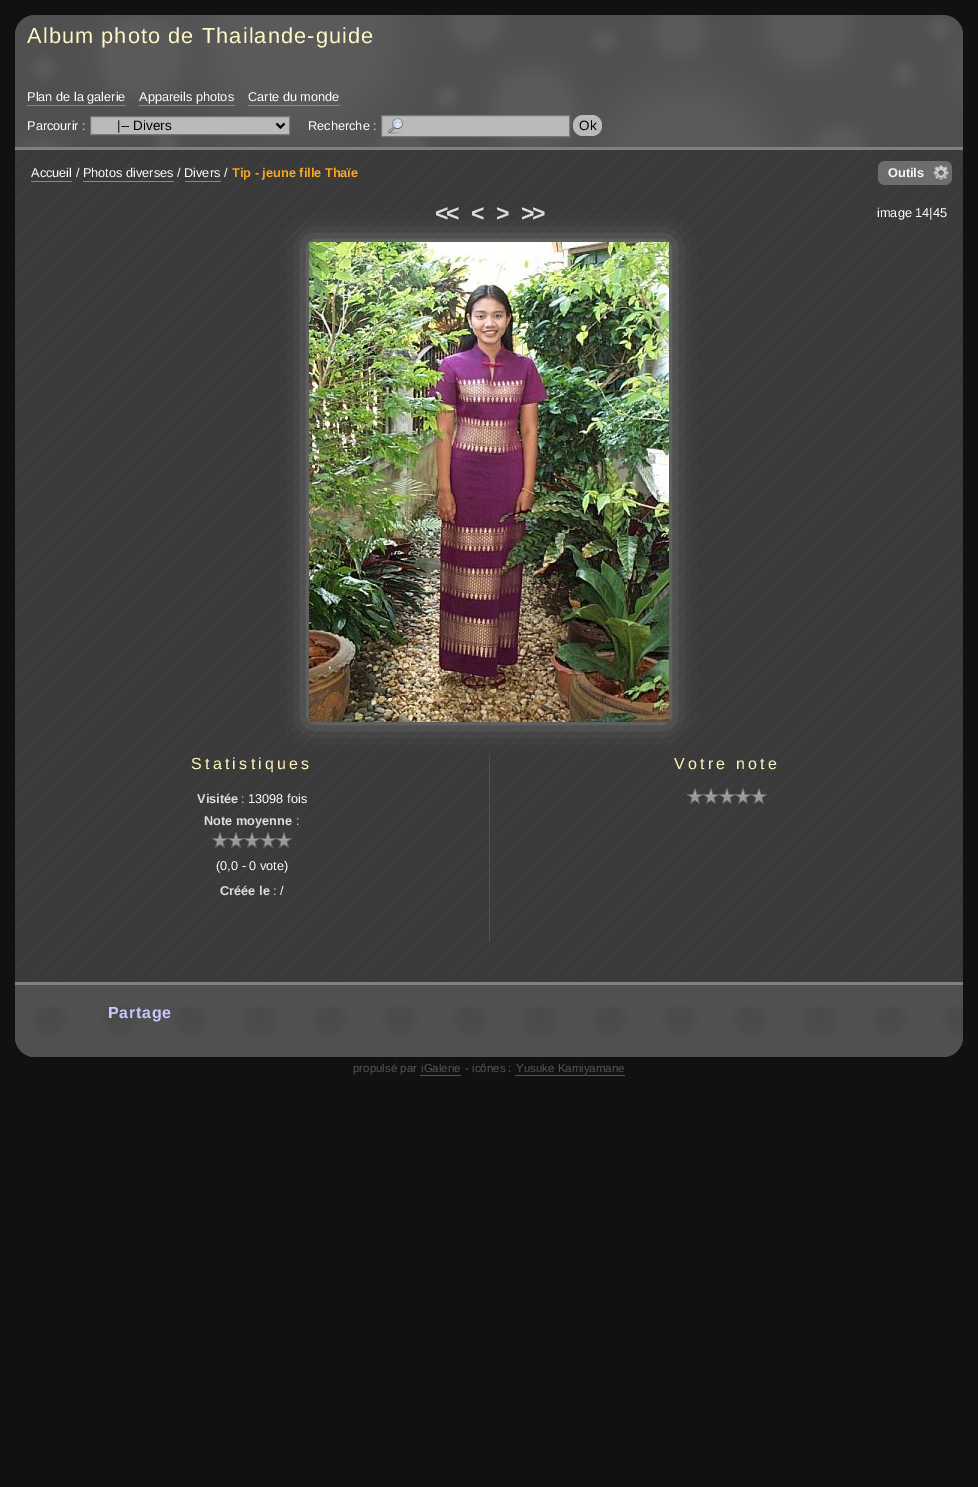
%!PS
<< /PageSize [978 1487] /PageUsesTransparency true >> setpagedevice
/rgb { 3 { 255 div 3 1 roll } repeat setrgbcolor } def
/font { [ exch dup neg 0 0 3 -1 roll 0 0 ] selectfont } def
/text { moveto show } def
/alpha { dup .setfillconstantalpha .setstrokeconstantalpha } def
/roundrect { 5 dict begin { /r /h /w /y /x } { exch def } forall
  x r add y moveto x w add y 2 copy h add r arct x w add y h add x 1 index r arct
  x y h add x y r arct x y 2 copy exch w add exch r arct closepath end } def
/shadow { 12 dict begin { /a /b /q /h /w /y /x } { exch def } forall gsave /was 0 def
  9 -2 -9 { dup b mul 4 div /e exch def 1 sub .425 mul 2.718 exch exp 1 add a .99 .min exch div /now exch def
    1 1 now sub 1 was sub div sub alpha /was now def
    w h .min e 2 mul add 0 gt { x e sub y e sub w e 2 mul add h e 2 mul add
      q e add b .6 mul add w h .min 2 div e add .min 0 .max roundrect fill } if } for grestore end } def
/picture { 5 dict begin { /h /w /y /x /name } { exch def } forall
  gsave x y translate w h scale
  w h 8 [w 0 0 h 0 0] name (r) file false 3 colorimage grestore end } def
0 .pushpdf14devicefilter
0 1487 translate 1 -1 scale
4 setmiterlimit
17 17 17 rgb
0 0 978 1487 rectfill
80 80 80 rgb
35 15 moveto 908 0 rlineto 11 0 20 9 20 20 rcurveto 0 115 rlineto -948 0 rlineto 0 -115 rlineto 0 -11 9 -20 20 -20 rcurveto closepath fill
(img_01.rgb) 15 15 948 132 picture
128 128 128 rgb
15 147 948 3 rectfill
136 136 136 rgb
27 105 99 1 rectfill
139 105 96 1 rectfill
248 105 92 1 rectfill
186 186 186 rgb
90.5 116.5 moveto 199 0 rlineto 0 18 rlineto -199 0 rlineto closepath gsave fill grestore
119 119 119 rgb
stroke
0 0 0 rgb
2 setlinewidth
276.5 123.5 moveto 4 4 rlineto 4 -4 rlineto stroke
186 186 186 rgb
382 116 187 20 rectfill
(img_02.rgb) 387 118 16 16 picture
119 119 119 rgb
1 setlinewidth
381.5 115.5 188 21 rectstroke
186 186 186 rgb
573 115 29 21 10 roundrect fill
58 58 58 rgb
15 150 moveto 948 0 rlineto 0 887 rlineto 0 11 -9 20 -20 20 rcurveto -908 0 rlineto -11 0 -20 -9 -20 -20 rcurveto closepath fill
(img_03.rgb) 15 150 948 907 picture
136 136 136 rgb
31 181 41 1 rectfill
83 181 91 1 rectfill
185 181 36 1 rectfill
0.95 alpha
112 112 112 rgb
878 161 74 24 7 roundrect fill
1 alpha
(img_04.rgb) 933 165 16 16 picture
80 80 80 rgb
489 755 1 187 rectfill
136 136 136 rgb
309 242 360 480 0 12.5 1 shadow
(img_05.rgb) 309 242 360 480 picture
(img_06.rgb) 212 832 16 16 picture
(img_07.rgb) 228 832 16 16 picture
(img_08.rgb) 244 832 16 16 picture
(img_09.rgb) 260 832 16 16 picture
(img_10.rgb) 276 832 16 16 picture
(img_11.rgb) 687 788 16 16 picture
(img_12.rgb) 703 788 16 16 picture
(img_13.rgb) 719 788 16 16 picture
(img_14.rgb) 735 788 16 16 picture
(img_15.rgb) 751 788 16 16 picture
80 80 80 rgb
15 982 moveto 948 0 rlineto 0 55 rlineto 0 11 -9 20 -20 20 rcurveto -908 0 rlineto -11 0 -20 -9 -20 -20 rcurveto closepath fill
(img_16.rgb) 15 1007 948 50 picture
128 128 128 rgb
15 982 948 3 rectfill
85 85 85 rgb
420 1075 41 1 rectfill
515 1075 110 1 rectfill
/LiberationSans-Regular 21.75 font
253 247 199 rgb
27 43 moveto 1.1 0 (Album photo de Thailande-guide) ashow
/LiberationSans-Regular 12.75 font
255 255 255 rgb
(Plan de la galerie) 27 101 text
(Appareils photos) 139 101 text
(Carte du monde) 248 101 text
(Parcourir :) 27 130 text
/LiberationSans-Regular 13.5 font
0 0 0 rgb
(|-- Divers) 117 130 text
/LiberationSans-Regular 12.75 font
255 255 255 rgb
(Recherche :) 308 130 text
/LiberationSans-Regular 13.5 font
0 0 0 rgb
(Ok) 579 130 text
/LiberationSans-Regular 12.75 font
255 255 255 rgb
(Accueil / Photos diverses / Divers /) 31 177 text
/LiberationSans-Bold 12.75 font
248 166 38 rgb
(Tip - jeune fille Thaïe) 232 177 text
248 248 248 rgb
(Outils) 888 177 text
/LiberationSans-Bold 23 font
221 221 221 rgb
435 221 moveto -2 0 (<<) ashow
471 221 moveto -2 0 (<) ashow
496 221 moveto -2 0 (>) ashow
521 221 moveto -2 0 (>>) ashow
/LiberationSans-Regular 12.75 font
255 255 255 rgb
(image 14|45) 877 217 text
/LiberationSans-Regular 16 font
255 246 185 rgb
191 769 moveto 3.25 0 (Statistiques) ashow
/LiberationSans-Bold 12.75 font
221 221 221 rgb
(Visitée) 197 803 text
/LiberationSans-Regular 12.75 font
255 255 255 rgb
(: 13098 fois) 241 803 text
/LiberationSans-Bold 12.75 font
221 221 221 rgb
(Note moyenne) 204 825 text
/LiberationSans-Regular 12.75 font
255 255 255 rgb
(:) 296 825 text
(\(0,0 - 0 vote\)) 216 870 text
/LiberationSans-Bold 12.75 font
221 221 221 rgb
(Créée le) 220 895 text
/LiberationSans-Regular 12.75 font
255 255 255 rgb
(: /) 273 895 text
/LiberationSans-Regular 16 font
255 246 185 rgb
674 769 moveto 3.25 0 (Votre note) ashow
/LiberationSans-Bold 16 font
199 200 255 rgb
108 1018 moveto 0.75 0 (Partage) ashow
/LiberationSans-Regular 11.5 font
85 85 85 rgb
(propulsé par) 353 1072 text
(iGalerie) 421 1072 text
(- icônes :) 465 1072 text
(Yusuke Kamiyamane) 516 1072 text
.poppdf14devicefilter showpage
